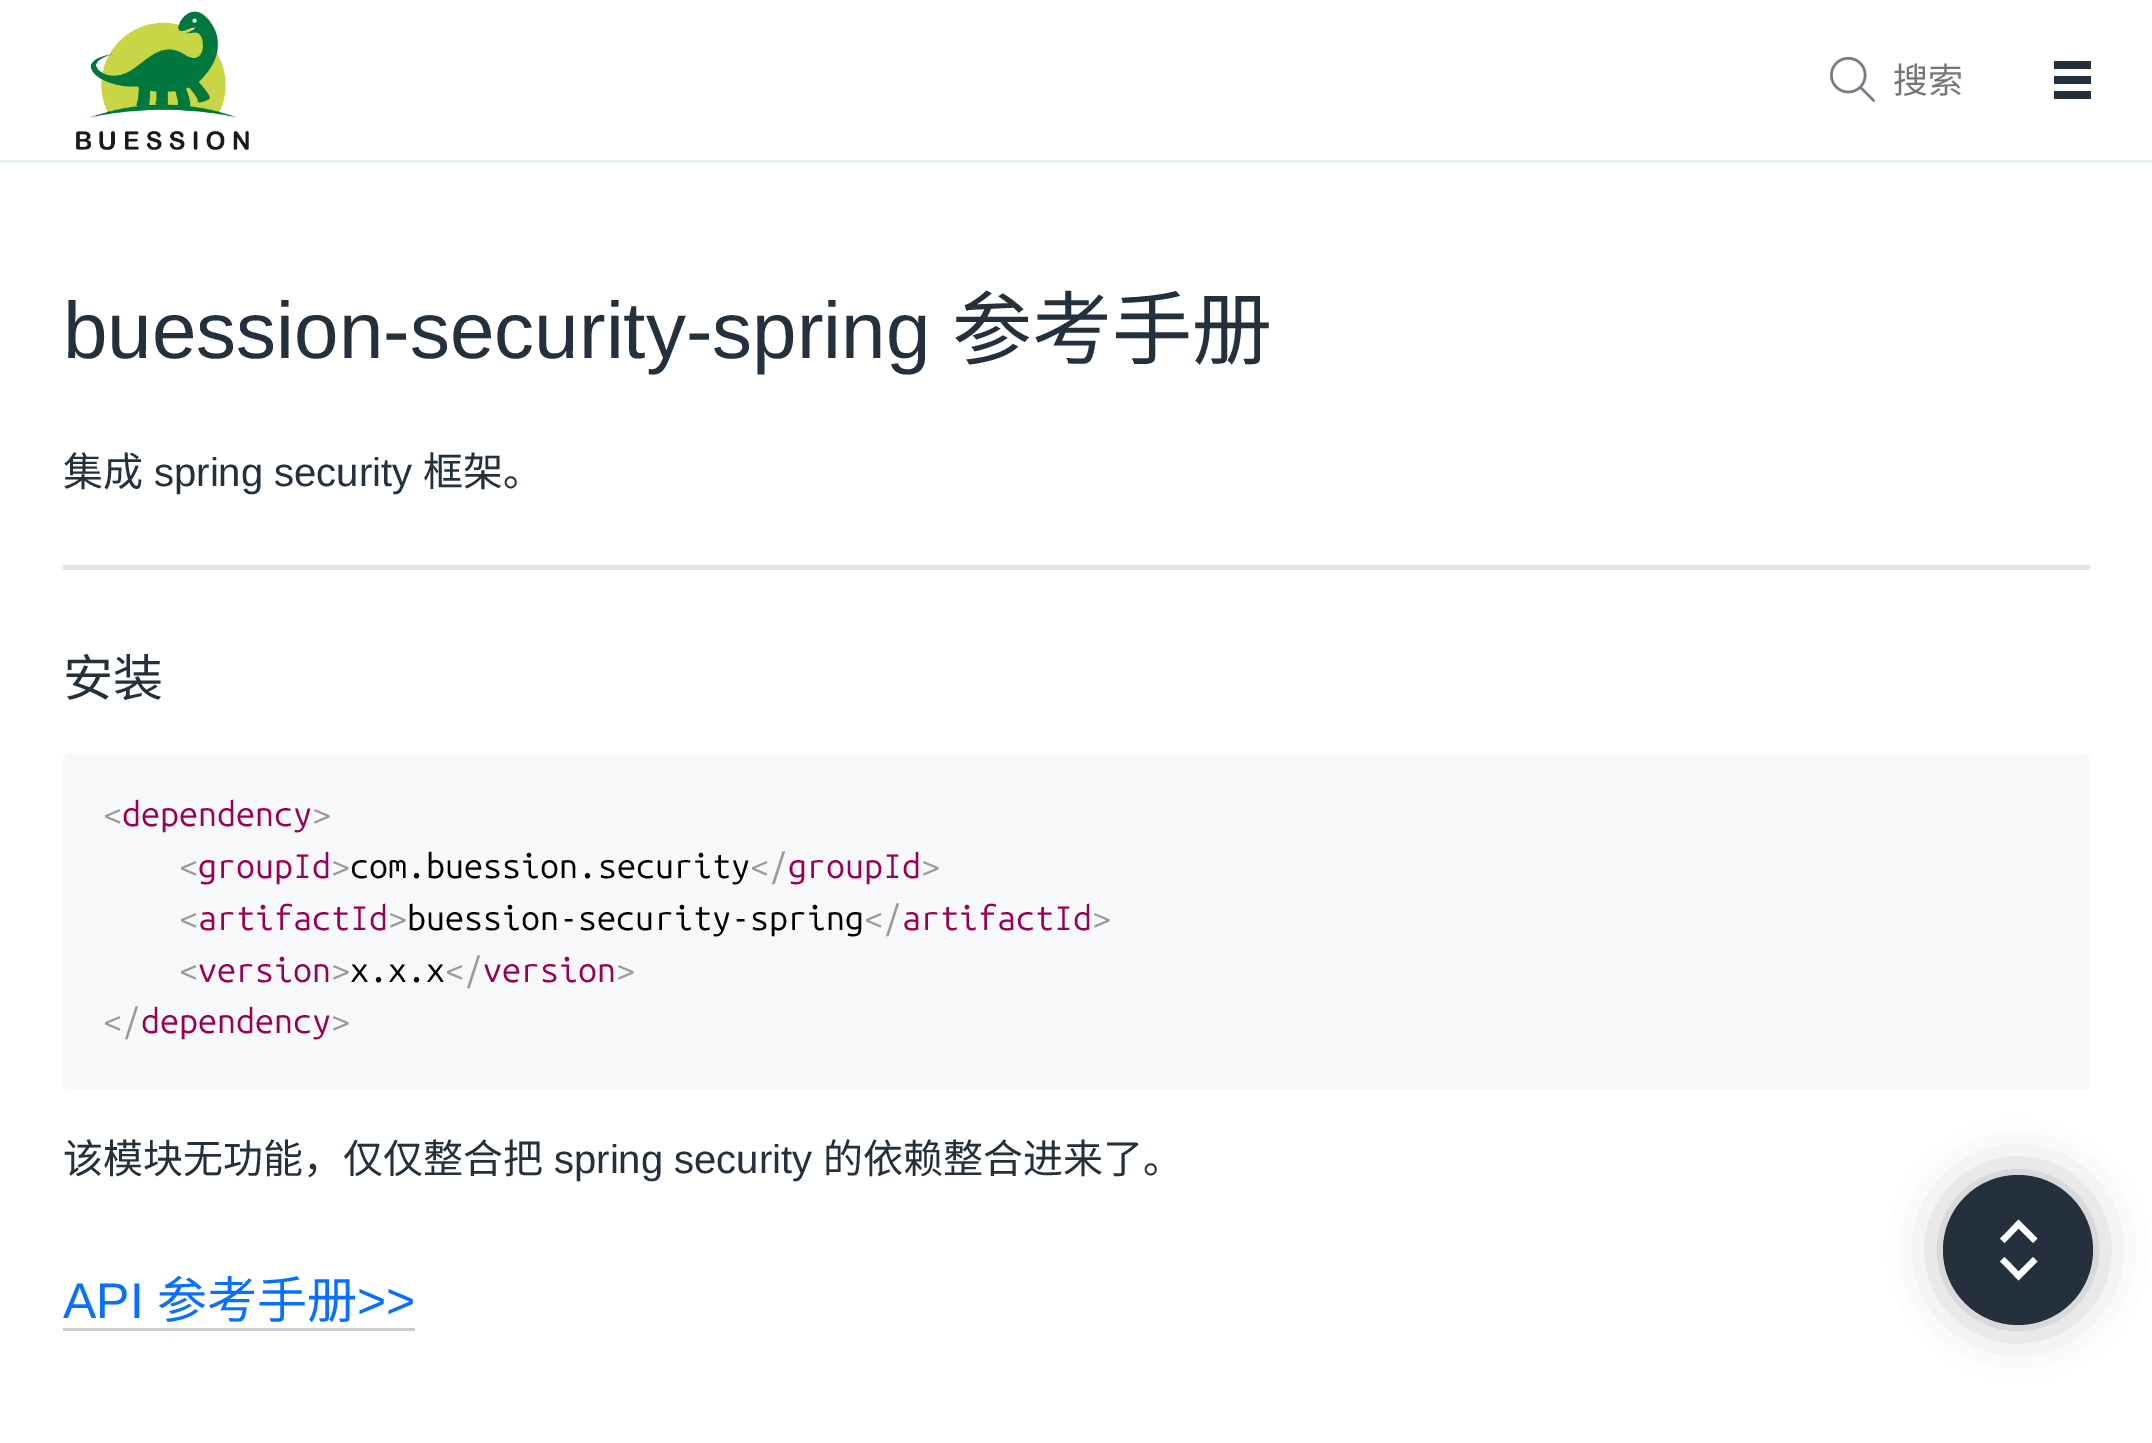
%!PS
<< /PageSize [2152 1443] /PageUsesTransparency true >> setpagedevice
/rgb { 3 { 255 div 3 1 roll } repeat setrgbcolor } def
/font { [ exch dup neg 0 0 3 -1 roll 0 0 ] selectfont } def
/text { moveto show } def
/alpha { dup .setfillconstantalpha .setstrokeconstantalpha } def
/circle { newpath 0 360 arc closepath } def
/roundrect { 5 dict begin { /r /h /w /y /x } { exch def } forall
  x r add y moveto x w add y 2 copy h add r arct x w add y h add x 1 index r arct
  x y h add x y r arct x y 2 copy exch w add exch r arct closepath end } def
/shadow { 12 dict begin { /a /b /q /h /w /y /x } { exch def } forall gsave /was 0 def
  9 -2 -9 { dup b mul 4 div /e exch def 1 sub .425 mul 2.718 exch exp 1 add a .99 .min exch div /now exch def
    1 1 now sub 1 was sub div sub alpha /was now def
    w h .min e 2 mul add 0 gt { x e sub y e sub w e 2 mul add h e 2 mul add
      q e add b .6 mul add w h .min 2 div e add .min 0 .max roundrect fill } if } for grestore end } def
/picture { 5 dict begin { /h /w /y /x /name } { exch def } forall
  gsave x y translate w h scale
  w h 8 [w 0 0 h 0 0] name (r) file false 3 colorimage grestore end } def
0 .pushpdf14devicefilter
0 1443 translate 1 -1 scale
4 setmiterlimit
255 255 255 rgb
0 0 2152 1443 rectfill
229 240 246 rgb
0 160 2152 3 rectfill
(img_01.rgb) 76 11 173 139 picture
(img_02.rgb) 1830 56 45 46 picture
36 48 60 rgb
2054 76 moveto 37 0 rlineto 0 8 rlineto -37 0 rlineto closepath 2054 91 moveto 37 0 rlineto 0 8 rlineto -37 0 rlineto closepath 2054 61 moveto 37 0 rlineto 0 8 rlineto -37 0 rlineto closepath fill
225 228 232 rgb
63 565 2027 5 rectfill
246 248 250 rgb
63 753 2027 337 8 roundrect fill
204 204 204 rgb
63 1328 352 3 rectfill
gsave
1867 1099 moveto 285 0 rlineto 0 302 rlineto -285 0 rlineto closepath 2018 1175 moveto 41.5 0 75 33.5 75 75 rcurveto 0 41.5 -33.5 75 -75 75 rcurveto -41.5 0 -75 -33.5 -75 -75 rcurveto 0 -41.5 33.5 -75 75 -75 rcurveto closepath eoclip newpath
0 0 0 rgb
1943 1175 150 150 75 25 0.3 shadow
grestore
0.87 alpha
3 17 31 rgb
2018 1250 75 circle fill
1 alpha
255 255 255 rgb
2009.5 1271 moveto -9.5 -9.5 rlineto 4.5 -4.5 rlineto 14 14.5 rlineto 14.5 -14.5 rlineto 4.5 4.5 rlineto -19 19 rlineto closepath 2009.5 1229 moveto -9.5 9.5 rlineto 4.5 4.5 rlineto 14 -14.5 rlineto 14.5 14.5 rlineto 4.5 -4.5 rlineto -19 -19 rlineto closepath fill
/NotoSansCJKSC-Regular 35 font
117 117 117 rgb
(搜索) 1893 93 text
/LiberationSans-Regular 80 font
36 48 60 rgb
(buession-security-spring) 63 358 text
/NotoSansCJKSC-Regular 80 font
(参考手册) 952 358 text
/NotoSansCJKSC-Regular 40 font
(集成) 63 486 text
/LiberationSans-Regular 40 font
(spring security) 154 486 text
/NotoSansCJKSC-Regular 40 font
(框架。) 423 486 text
/NotoSansCJKSC-Regular 50 font
(安装) 63 696 text
/UbuntuMono-Regular 34 font
153 153 153 rgb
(<) 103 826 text
153 0 85 rgb
(dependency) 122 826 text
153 153 153 rgb
(>) 312 826 text
(<) 179 878 text
153 0 85 rgb
(groupId) 198 878 text
153 153 153 rgb
(>) 331 878 text
0 0 0 rgb
(com.buession.security) 350 878 text
153 153 153 rgb
(</) 750 878 text
153 0 85 rgb
(groupId) 788 878 text
153 153 153 rgb
(>) 921 878 text
(<) 179 930 text
153 0 85 rgb
(artifactId) 198 930 text
153 153 153 rgb
(>) 388 930 text
0 0 0 rgb
(buession-security-spring) 407 930 text
153 153 153 rgb
(</) 864 930 text
153 0 85 rgb
(artifactId) 902 930 text
153 153 153 rgb
(>) 1092 930 text
(<) 179 982 text
153 0 85 rgb
(version) 198 982 text
153 153 153 rgb
(>) 331 982 text
0 0 0 rgb
(x.x.x) 350 982 text
153 153 153 rgb
(</) 445 982 text
153 0 85 rgb
(version) 483 982 text
153 153 153 rgb
(>) 616 982 text
(</) 103 1033 text
153 0 85 rgb
(dependency) 141 1033 text
153 153 153 rgb
(>) 331 1033 text
/NotoSansCJKSC-Regular 40 font
36 48 60 rgb
(该模块无功能，仅仅整合把) 63 1173 text
/LiberationSans-Regular 40 font
(spring security) 554 1173 text
/NotoSansCJKSC-Regular 40 font
(的依赖整合进来了。) 823 1173 text
/LiberationSans-Regular 50 font
8 111 255 rgb
(API) 63 1318 text
/NotoSansCJKSC-Regular 50 font
(参考手册) 157 1318 text
/LiberationSans-Regular 50 font
(>>) 357 1318 text
.poppdf14devicefilter showpage
